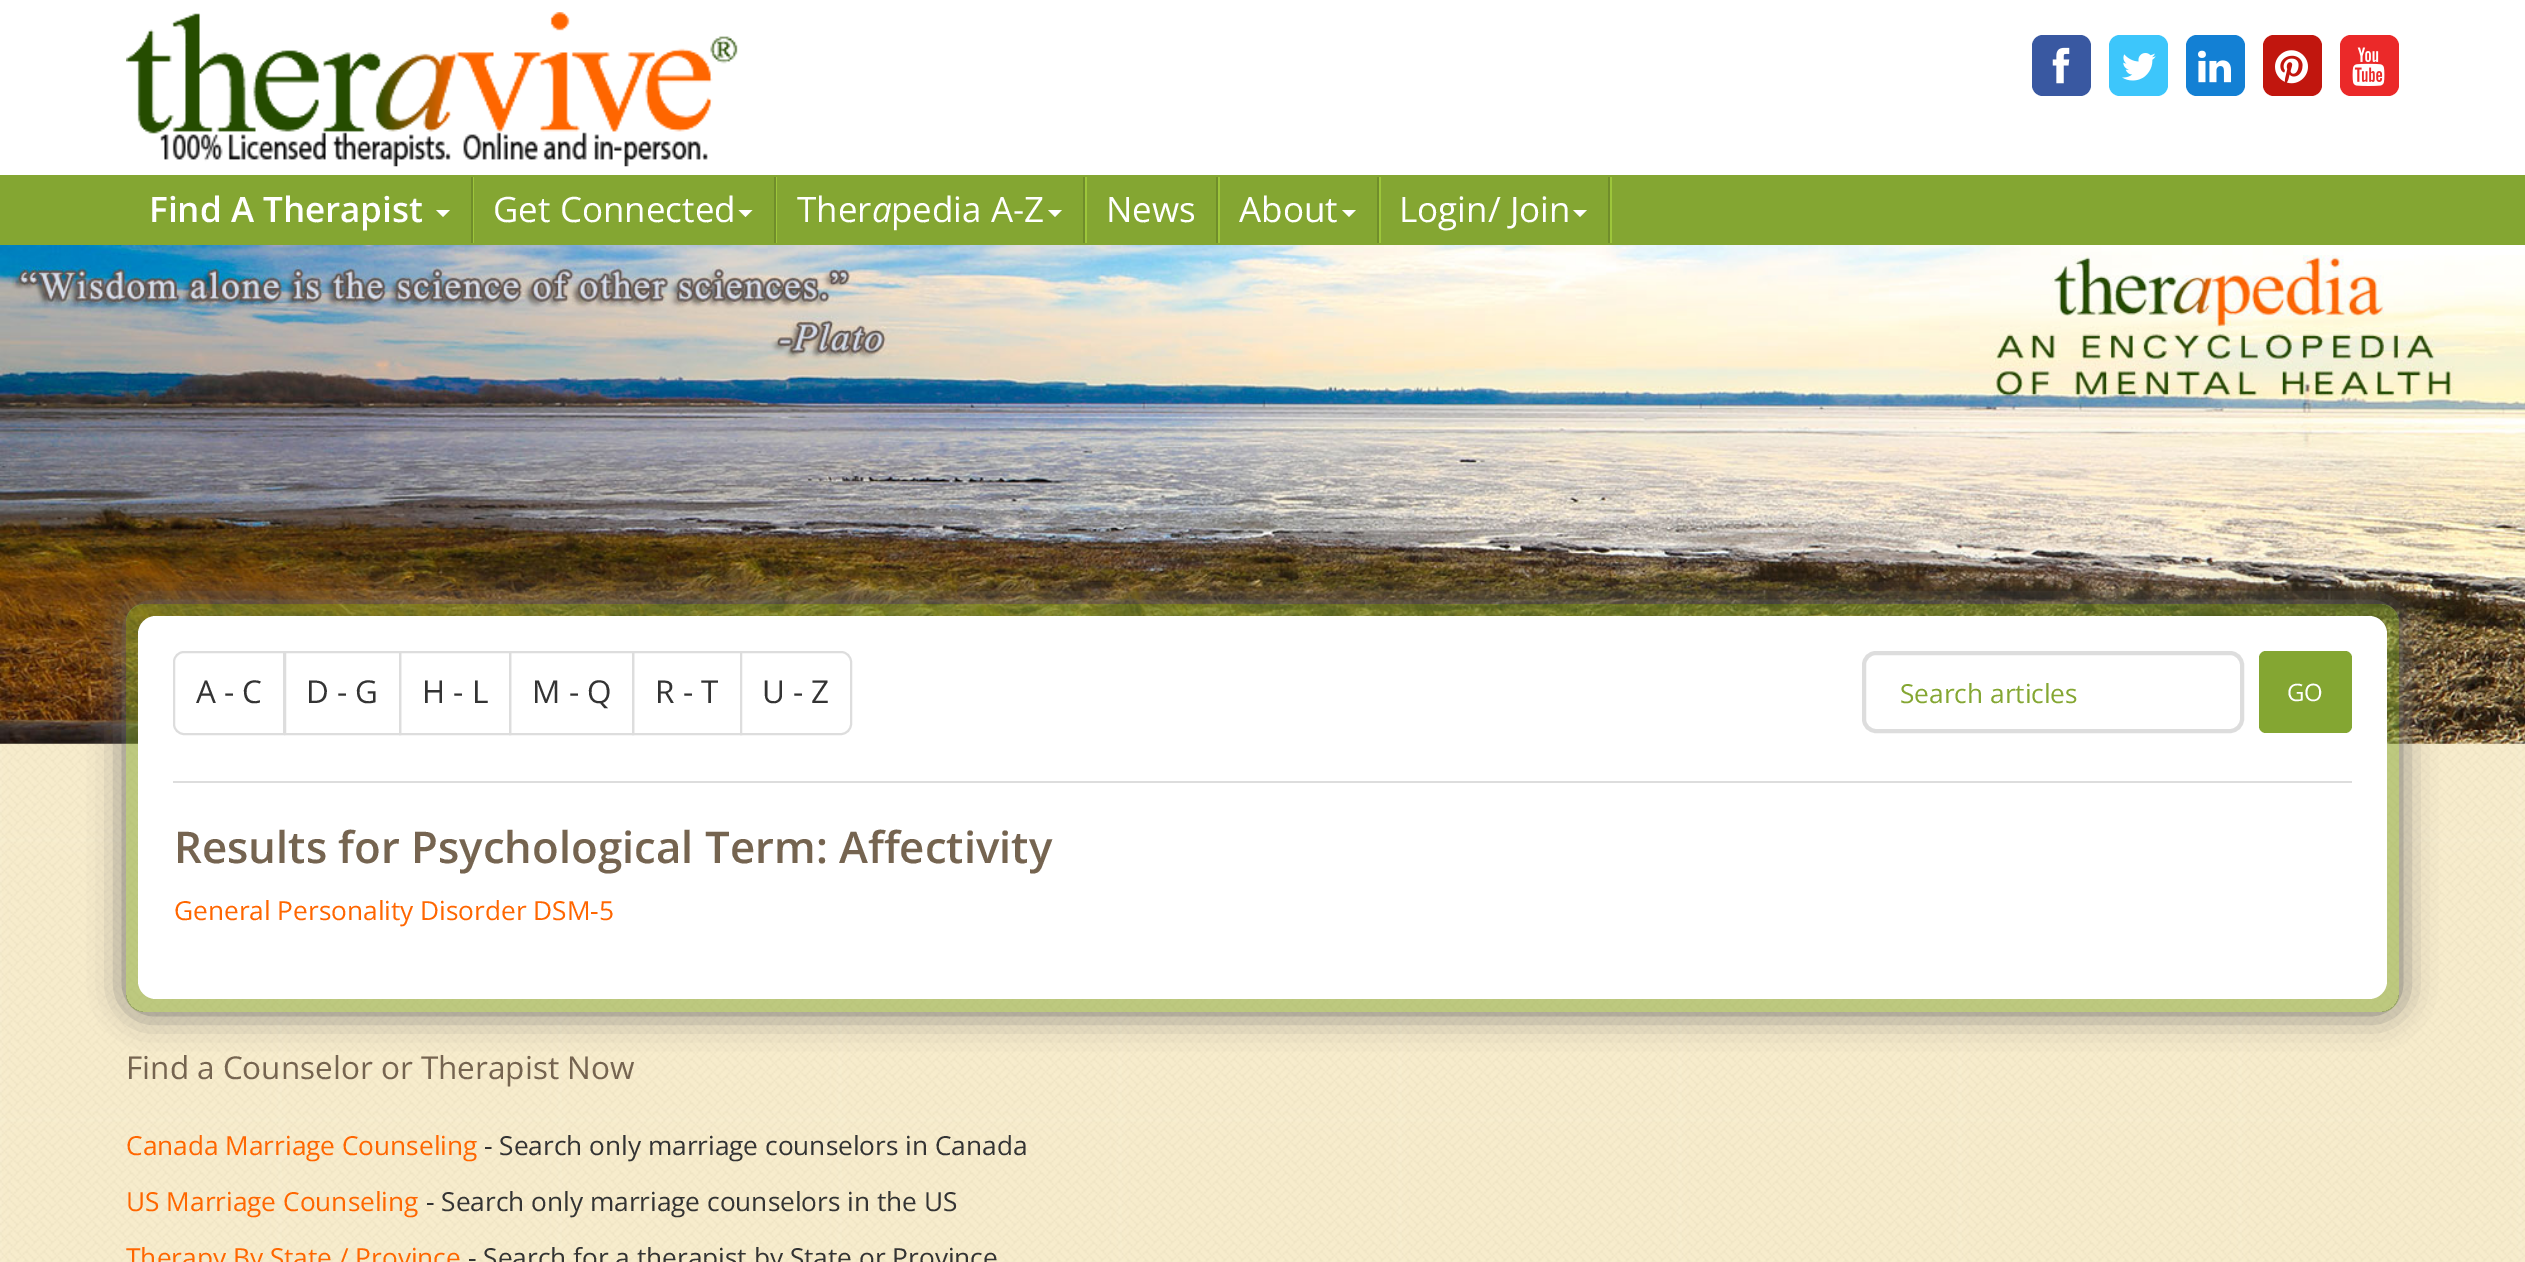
%!PS
<< /PageSize [2525 1262] /PageUsesTransparency true >> setpagedevice
/rgb { 3 { 255 div 3 1 roll } repeat setrgbcolor } def
/font { [ exch dup neg 0 0 3 -1 roll 0 0 ] selectfont } def
/text { moveto show } def
/alpha { dup .setfillconstantalpha .setstrokeconstantalpha } def
/roundrect { 5 dict begin { /r /h /w /y /x } { exch def } forall
  x r add y moveto x w add y 2 copy h add r arct x w add y h add x 1 index r arct
  x y h add x y r arct x y 2 copy exch w add exch r arct closepath end } def
/shadow { 12 dict begin { /a /b /q /h /w /y /x } { exch def } forall gsave /was 0 def
  9 -2 -9 { dup b mul 4 div /e exch def 1 sub .425 mul 2.718 exch exp 1 add a .99 .min exch div /now exch def
    1 1 now sub 1 was sub div sub alpha /was now def
    w h .min e 2 mul add 0 gt { x e sub y e sub w e 2 mul add h e 2 mul add
      q e add b .6 mul add w h .min 2 div e add .min 0 .max roundrect fill } if } for grestore end } def
/picture { 5 dict begin { /h /w /y /x /name } { exch def } forall
  gsave x y translate w h scale
  w h 8 [w 0 0 h 0 0] name (r) file false 3 colorimage grestore end } def
0 .pushpdf14devicefilter
0 1262 translate 1 -1 scale
4 setmiterlimit
255 255 255 rgb
0 0 2525 1262 rectfill
(img_01.rgb) 0 743 2525 519 picture
(img_02.rgb) 126 12 612 155 picture
57 88 161 rgb
2032 35 59 61 11 roundrect fill
(img_03.rgb) 2052 47 18 37 picture
61 198 251 rgb
2109 35 59 61 11 roundrect fill
(img_04.rgb) 2122 53 34 28 picture
19 128 212 rgb
2186 35 59 61 11 roundrect fill
(img_05.rgb) 2198 50 33 33 picture
193 22 14 rgb
2263 35 59 61 11 roundrect fill
(img_06.rgb) 2275 50 33 34 picture
235 41 41 rgb
2340 35 59 61 11 roundrect fill
(img_07.rgb) 2352 47 33 39 picture
132 166 50 rgb
0 175 2525 70 rectfill
157 198 59 rgb
473 177 1 66 rectfill
112 141 43 rgb
471 177 2 66 rectfill
255 255 255 rgb
436 210 moveto 14 0 rlineto -7 7 rlineto closepath fill
157 198 59 rgb
776 177 1 66 rectfill
112 141 43 rgb
774 177 2 66 rectfill
255 255 255 rgb
738.5 210 moveto 14 0 rlineto -7 7 rlineto closepath fill
157 198 59 rgb
1085 177 2 66 rectfill
112 141 43 rgb
1083 177 2 66 rectfill
255 255 255 rgb
1048 210 moveto 14 0 rlineto -7 7 rlineto closepath fill
157 198 59 rgb
1218 177 2 66 rectfill
112 141 43 rgb
1216 177 2 66 rectfill
157 198 59 rgb
1379 177 2 66 rectfill
112 141 43 rgb
1377 177 2 66 rectfill
255 255 255 rgb
1342 210 moveto 14 0 rlineto -7 7 rlineto closepath fill
157 198 59 rgb
1610 177 2 66 rectfill
112 141 43 rgb
1608 177 2 66 rectfill
255 255 255 rgb
1573 210 moveto 14 0 rlineto -7 7 rlineto closepath fill
(img_08.rgb) 0 245 2525 499 picture
gsave
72 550 moveto 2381 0 rlineto 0 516 rlineto -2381 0 rlineto closepath 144 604 moveto 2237 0 rlineto 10 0 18 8 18 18 rcurveto 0 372 rlineto 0 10 -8 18 -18 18 rcurveto -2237 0 rlineto -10 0 -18 -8 -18 -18 rcurveto 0 -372 rlineto 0 -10 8 -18 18 -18 rcurveto closepath eoclip newpath
108 108 108 rgb
126 604 2273 408 18 17.5 1 shadow
grestore
0.5 alpha
132 166 50 rgb
126 604 2273 408 18 roundrect fill
1 alpha
255 255 255 rgb
138 616 2249 383 18 roundrect fill
221 221 221 rgb
2 setlinewidth
184 652 moveto 100 0 rlineto 0 82 rlineto -100 0 rlineto -5.5 0 -10 -4.5 -10 -10 rcurveto 0 -62 rlineto 0 -5.5 4.5 -10 10 -10 rcurveto closepath stroke
285 652 115 82 rectstroke
400 652 110 82 rectstroke
510 652 123 82 rectstroke
633 652 108 82 rectstroke
255 255 255 rgb
741 652 moveto 100 0 rlineto 5.5 0 10 4.5 10 10 rcurveto 0 62 rlineto 0 5.5 -4.5 10 -10 10 rcurveto -100 0 rlineto closepath gsave fill grestore
221 221 221 rgb
stroke
4 setlinewidth
1864 653 378 78 12 roundrect stroke
132 166 50 rgb
2259 651 93 82 7 roundrect fill
221 221 221 rgb
173 781 2179 2 rectfill
/OpenSans-SemiBold 35 font
255 255 255 rgb
(Find A Therapist) 149 222 text
/OpenSans-Regular 35 font
(Get Connected) 493 222 text
(Ther) 797 222 text
/OpenSans-Italic 35 font
(a) 872 222 text
/OpenSans-Regular 35 font
(pedia A-Z) 891 222 text
(News) 1106 222 text
(About) 1239 222 text
(Login/ Join) 1399 222 text
/OpenSans-Regular 31.5 font
51 51 51 rgb
(A - C) 196 703 text
(D - G) 306 703 text
(H - L) 422 703 text
(M - Q) 532 703 text
(R - T) 655 703 text
(U - Z) 762 703 text
/OpenSans-Regular 26.25 font
132 166 50 rgb
(Search articles) 1900 703 text
/OpenSans-Regular 24 font
255 255 255 rgb
(GO) 2287 701 text
/OpenSans-SemiBold 43.75 font
117 100 80 rgb
(Results for Psychological Term: Affectivity) 174 863 text
/OpenSans-Regular 26.25 font
255 102 0 rgb
(General Personality Disorder DSM-5) 174 920 text
/OpenSans-Regular 31.5 font
117 100 80 rgb
(Find a Counselor or Therapist Now) 126 1079 text
/OpenSans-Regular 26.25 font
255 102 0 rgb
(Canada Marriage Counseling) 126 1155 text
51 51 51 rgb
(- Search only marriage counselors in Canada) 484 1155 text
255 102 0 rgb
(US Marriage Counseling) 126 1211 text
51 51 51 rgb
(- Search only marriage counselors in the US) 426 1211 text
255 102 0 rgb
(Therapy By State / Province) 126 1267 text
51 51 51 rgb
(- Search for a therapist by State or Province) 468 1267 text
.poppdf14devicefilter showpage
